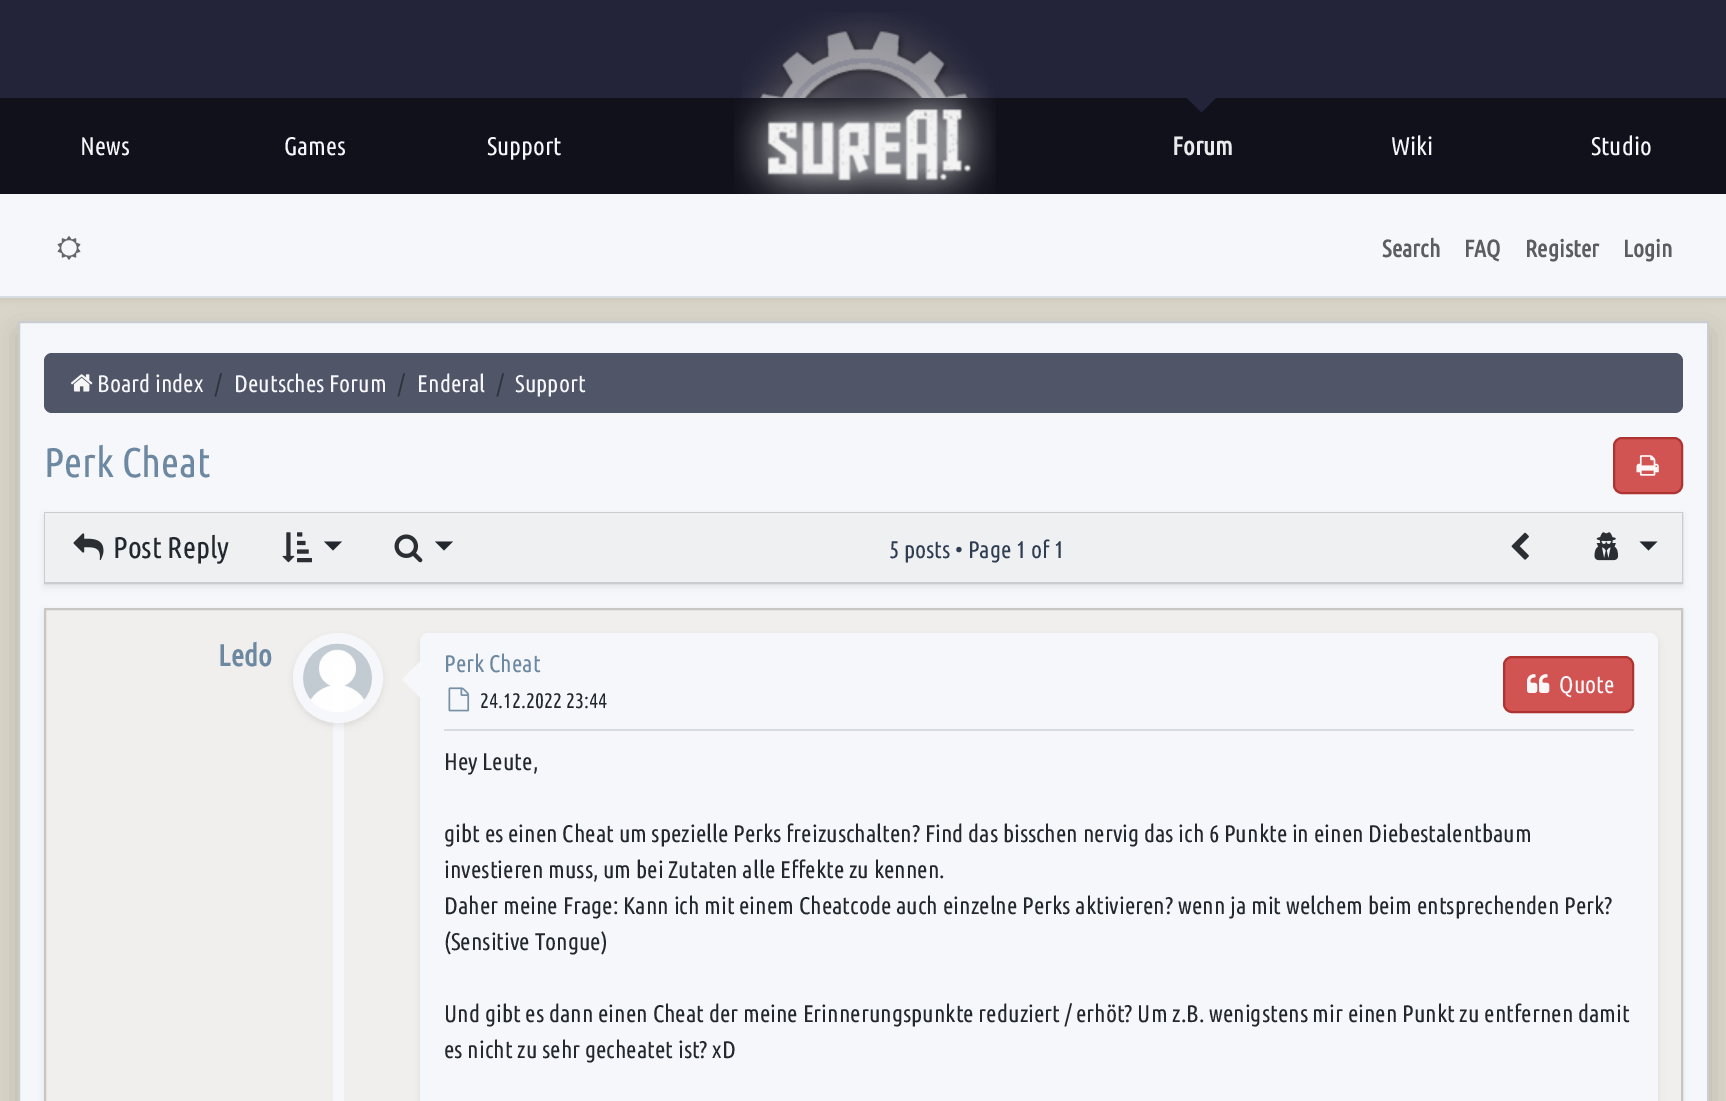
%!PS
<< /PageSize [1726 1101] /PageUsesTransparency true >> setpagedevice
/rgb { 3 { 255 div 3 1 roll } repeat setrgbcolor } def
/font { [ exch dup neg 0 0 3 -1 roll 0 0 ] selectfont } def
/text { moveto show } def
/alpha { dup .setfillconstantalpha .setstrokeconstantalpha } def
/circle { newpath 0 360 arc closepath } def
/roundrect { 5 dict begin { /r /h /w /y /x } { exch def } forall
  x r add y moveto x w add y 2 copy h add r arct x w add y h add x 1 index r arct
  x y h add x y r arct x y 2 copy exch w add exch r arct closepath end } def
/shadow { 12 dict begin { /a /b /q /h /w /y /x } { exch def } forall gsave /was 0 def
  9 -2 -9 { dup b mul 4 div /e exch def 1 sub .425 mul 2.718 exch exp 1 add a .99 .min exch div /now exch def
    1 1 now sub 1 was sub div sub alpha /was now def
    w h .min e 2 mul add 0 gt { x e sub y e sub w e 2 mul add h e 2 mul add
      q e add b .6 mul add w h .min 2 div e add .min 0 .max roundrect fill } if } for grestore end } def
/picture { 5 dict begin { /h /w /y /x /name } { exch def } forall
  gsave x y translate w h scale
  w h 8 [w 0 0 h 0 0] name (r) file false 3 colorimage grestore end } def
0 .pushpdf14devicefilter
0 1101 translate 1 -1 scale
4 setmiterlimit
217 213 200 rgb
0 0 1726 1101 rectfill
35 36 58 rgb
0 0 1726 98 rectfill
(img_01.rgb) 742 12 246 86 picture
(img_02.rgb) 757 30 217 68 picture
16 17 27 rgb
0 98 1726 96 rectfill
(img_03.rgb) 734 74 262 120 picture
35 36 58 rgb
1186.5 97.5 moveto 30 0 rlineto -15 15 rlineto closepath fill
4 5 7 rgb
0 197 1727 103 0 3 0.07 shadow
246 247 250 rgb
0 194 1726 102 rectfill
4 5 7 rgb
18 333 1691 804 0 12 0.15 shadow
214 220 226 rgb
0 296 1726 2 rectfill
(img_04.rgb) 57 236 24 24 picture
246 247 250 rgb
19 322 moveto 1689 0 rlineto 0 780 rlineto -1689 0 rlineto closepath gsave fill grestore
203 204 207 rgb
2 setlinewidth
stroke
80 85 104 rgb
44 353 1639 60 8 roundrect fill
(img_05.rgb) 70 374 23 18 picture
210 84 82 rgb
1614 438 68 55 8 roundrect gsave fill grestore
174 52 50 rgb
stroke
(img_06.rgb) 1636 455 23 21 picture
4 5 7 rgb
44 515 1639 72 0 3 0.07 shadow
203 204 207 rgb
45 513 1637 70 rectstroke
238 240 242 rgb
45 513 1637 69 rectfill
(img_07.rgb) 73 533 31 28 picture
(img_08.rgb) 282 532 30 31 picture
35 40 46 rgb
324 541.5 moveto 18 0 rlineto -9 9 rlineto closepath fill
(img_09.rgb) 394 534 29 29 picture
435 541.5 moveto 18 0 rlineto -9 9 rlineto closepath fill
(img_10.rgb) 1511 532 18 28 picture
(img_11.rgb) 1594 532 25 29 picture
1639.5 541.5 moveto 18 0 rlineto -9 9 rlineto closepath fill
4 5 7 rgb
44 611 1639 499 0 3 0.07 shadow
241 239 237 rgb
45 609 moveto 1637 0 rlineto 0 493 rlineto -1637 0 rlineto closepath gsave fill grestore
199 198 197 rgb
stroke
246 247 250 rgb
333 663 11 438 rectfill
gsave
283 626 moveto 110 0 rlineto 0 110 rlineto -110 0 rlineto closepath 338 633 moveto 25 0 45 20 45 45 rcurveto 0 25 -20 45 -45 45 rcurveto -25 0 -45 -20 -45 -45 rcurveto 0 -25 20 -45 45 -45 rcurveto closepath eoclip newpath
4 5 7 rgb
293 636 90 90 45 3 0.07 shadow
grestore
11 setlinewidth
338 678 39.5 circle stroke
(img_12.rgb) 303 643 69 69 picture
4 5 7 rgb
420 636 1238 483 9 3 0.07 shadow
246 247 250 rgb
420 633 1238 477 9 roundrect fill
421.5 660 moveto 0 39 rlineto -19.5 -19.5 rlineto closepath fill
214 220 226 rgb
444 729 1190 2 rectfill
(img_13.rgb) 448 687 22 25 picture
210 84 82 rgb
1504 657 129 55 8 roundrect gsave fill grestore
174 52 50 rgb
2 setlinewidth
stroke
(img_14.rgb) 1527 674 23 19 picture
/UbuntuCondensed-Regular 25.5 font
246 247 250 rgb
(News) 80 155 text
(Games) 284 155 text
(Support) 487 155 text
/UbuntuCondensed-Bold 25.5 font
233 235 237 rgb
(Forum) 1172 155 text
/UbuntuCondensed-Regular 25.5 font
246 247 250 rgb
(Wiki) 1391 155 text
(Studio) 1591 155 text
/UbuntuCondensed-Bold 24 font
91 93 97 rgb
(Search) 1382 257 text
(FAQ) 1464 257 text
(Register) 1525 257 text
(Login) 1623 257 text
/UbuntuCondensed-Regular 24 font
246 247 250 rgb
(Board index) 97 392 text
46 51 61 rgb
(/) 215 392 text
246 247 250 rgb
(Deutsches Forum) 234 392 text
46 51 61 rgb
(/) 398 392 text
246 247 250 rgb
(Enderal) 417 392 text
46 51 61 rgb
(/) 497 392 text
246 247 250 rgb
(Support) 515 392 text
/UbuntuCondensed-Regular 41.5 font
109 137 162 rgb
(Perk Cheat) 44 477 text
/UbuntuCondensed-Regular 30 font
35 40 46 rgb
(Post Reply) 113 558 text
/UbuntuCondensed-Regular 24 font
47 61 82 rgb
(5 posts • Page 1 of 1) 889 558 text
/UbuntuCondensed-Bold 30 font
109 137 162 rgb
(Ledo) 218 666 text
/UbuntuCondensed-Regular 24 font
(Perk Cheat) 444 672 text
/UbuntuCondensed-Regular 21 font
35 40 46 rgb
(24.12.2022 23:44) 480 708 text
/UbuntuCondensed-Regular 24 font
246 247 250 rgb
(Quote) 1559 693 text
35 40 46 rgb
(Hey Leute,) 444 770 text
(gibt es einen Cheat um spezielle Perks freizuschalten? Find das bisschen nervig das ich 6 Punkte in einen Diebestalentbaum) 444 842 text
(investieren muss, um bei Zutaten alle Effekte zu kennen.) 444 878 text
(Daher meine Frage: Kann ich mit einem Cheatcode auch einzelne Perks aktivieren? wenn ja mit welchem beim entsprechenden Perk?) 444 914 text
(\(Sensitive Tongue\)) 444 950 text
(Und gibt es dann einen Cheat der meine Erinnerungspunkte reduziert / erhöt? Um z.B. wenigstens mir einen Punkt zu entfernen damit) 444 1022 text
(es nicht zu sehr gecheatet ist? xD) 444 1058 text
.poppdf14devicefilter showpage
